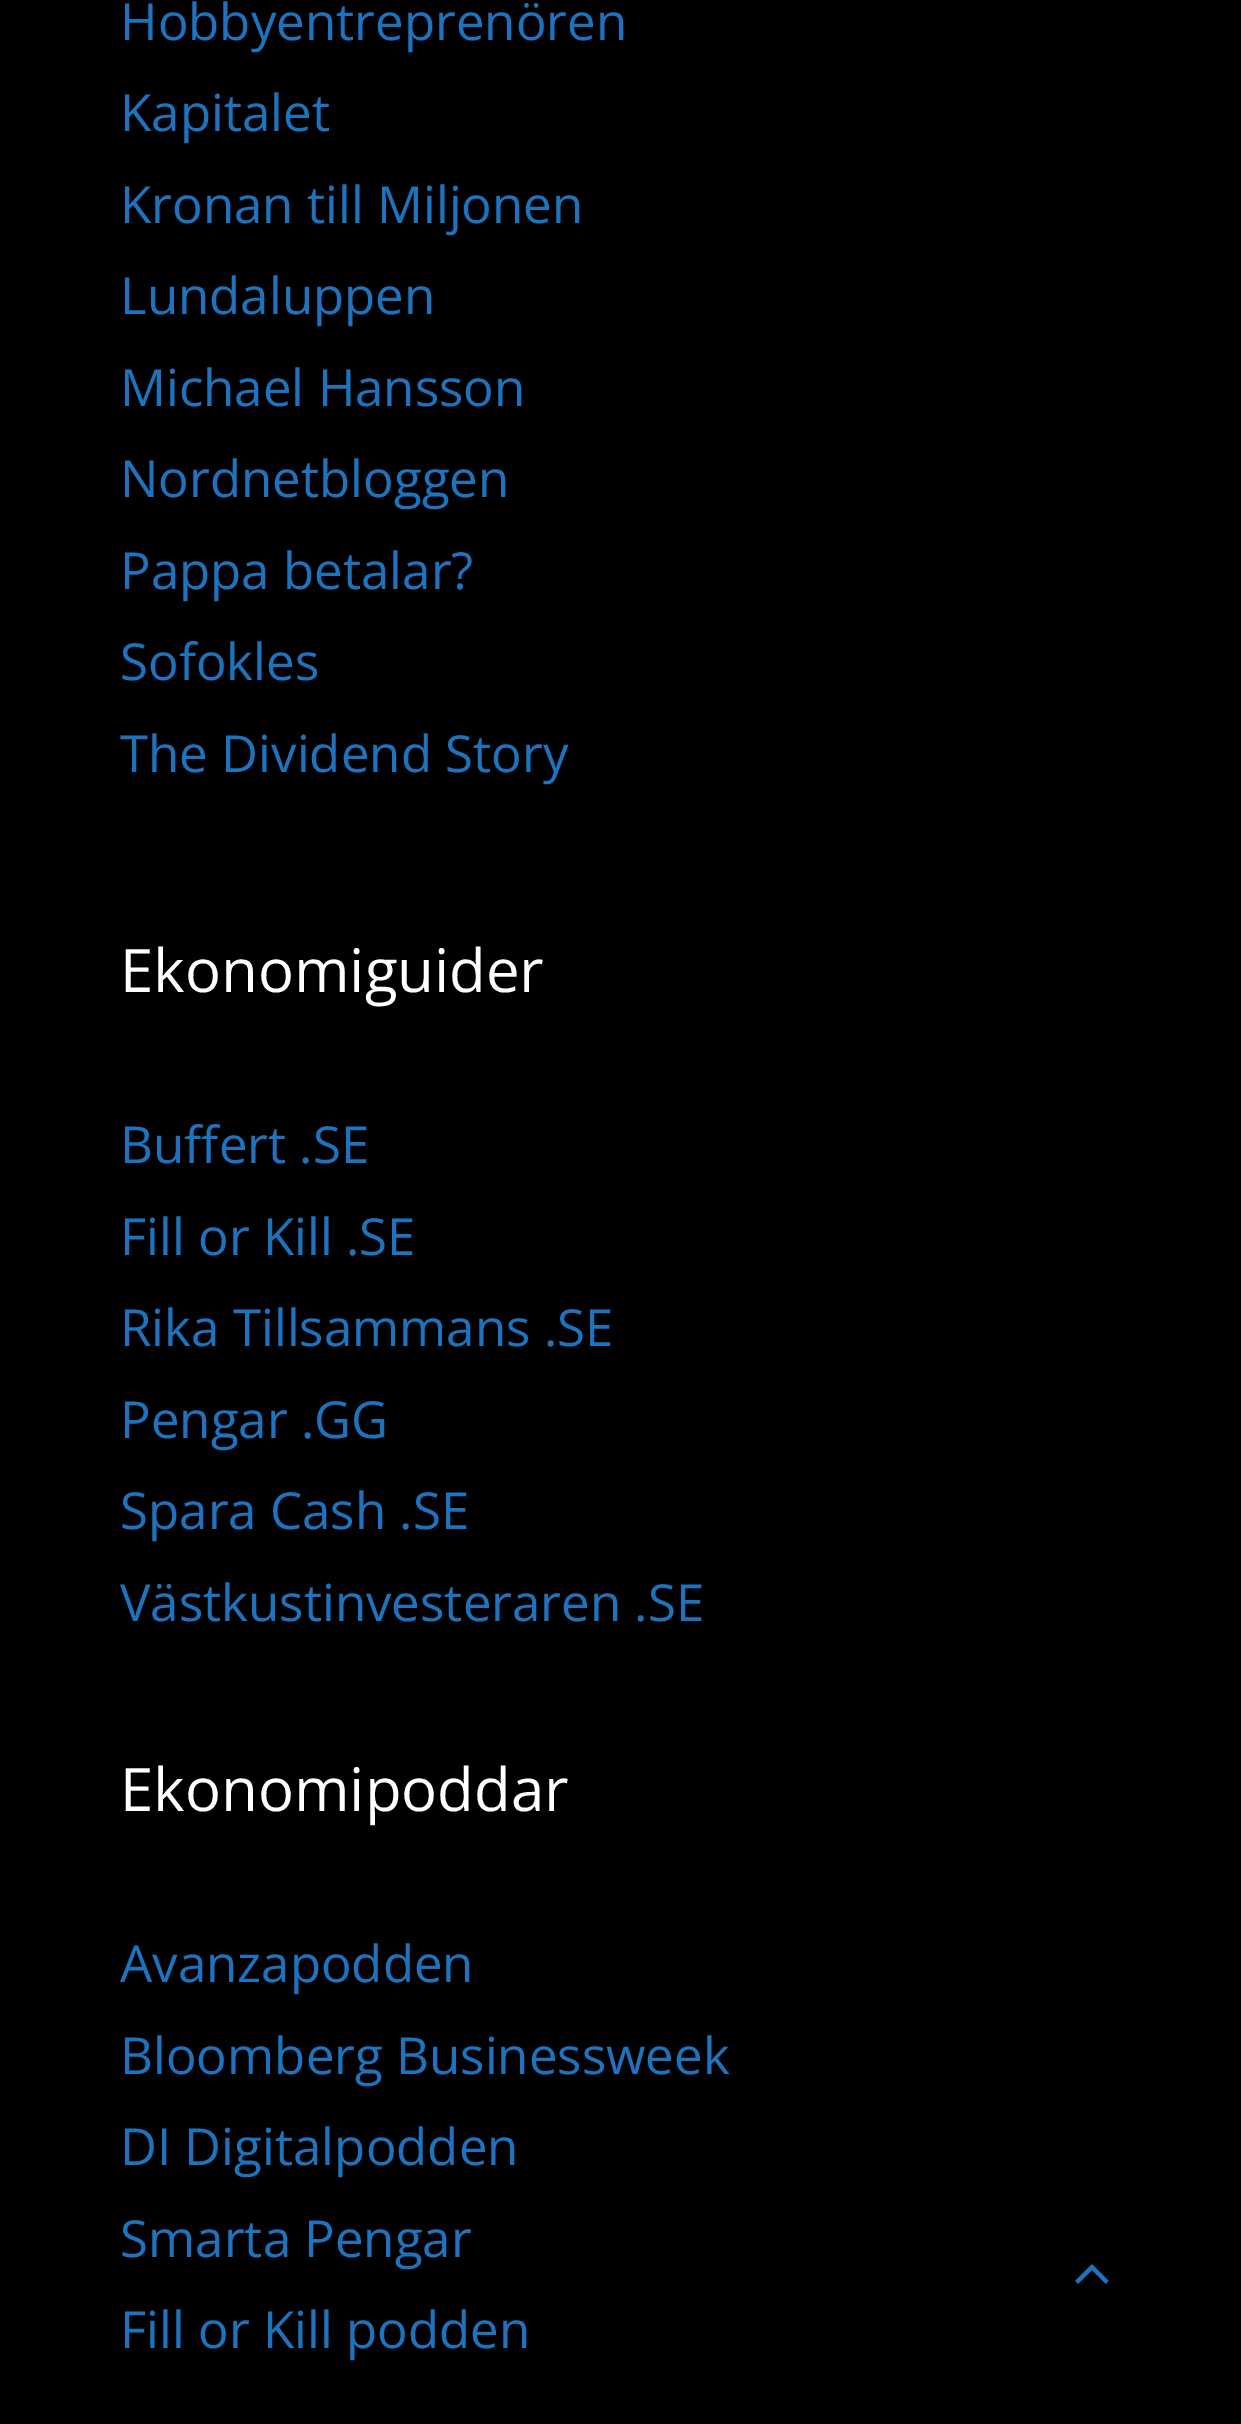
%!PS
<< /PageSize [1241 2424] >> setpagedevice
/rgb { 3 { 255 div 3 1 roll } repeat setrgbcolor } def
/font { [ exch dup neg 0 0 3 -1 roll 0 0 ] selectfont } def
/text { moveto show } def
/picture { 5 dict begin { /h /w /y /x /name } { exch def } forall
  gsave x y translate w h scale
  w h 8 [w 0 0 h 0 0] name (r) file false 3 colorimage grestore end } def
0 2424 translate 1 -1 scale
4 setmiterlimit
0 0 0 rgb
0 0 1241 2424 rectfill
(img_01.rgb) 1075 2264 34 20 picture
/OpenSans-Regular 51 font
30 115 190 rgb
(Hobbyentreprenören) 120 40 text
(Kapitalet) 120 131 text
(Kronan till Miljonen) 120 223 text
(Lundaluppen) 120 314 text
(Michael Hansson) 120 406 text
(Nordnetbloggen) 120 497 text
(Pappa betalar?) 120 589 text
(Sofokles) 120 680 text
(The Dividend Story) 120 772 text
/OpenSans-Regular 60 font
255 255 255 rgb
(Ekonomiguider) 120 992 text
/OpenSans-Regular 51 font
30 115 190 rgb
(Buffert .SE) 120 1163 text
(Fill or Kill .SE) 120 1255 text
(Rika Tillsammans .SE) 120 1346 text
(Pengar .GG) 120 1438 text
(Spara Cash .SE) 120 1529 text
(Västkustinvesteraren .SE) 120 1621 text
/OpenSans-Regular 60 font
255 255 255 rgb
(Ekonomipoddar) 120 1811 text
/OpenSans-Regular 51 font
30 115 190 rgb
(Avanzapodden) 120 1982 text
(Bloomberg Businessweek) 120 2074 text
(DI Digitalpodden) 120 2165 text
(Smarta Pengar) 120 2257 text
(Fill or Kill podden) 120 2348 text
showpage
